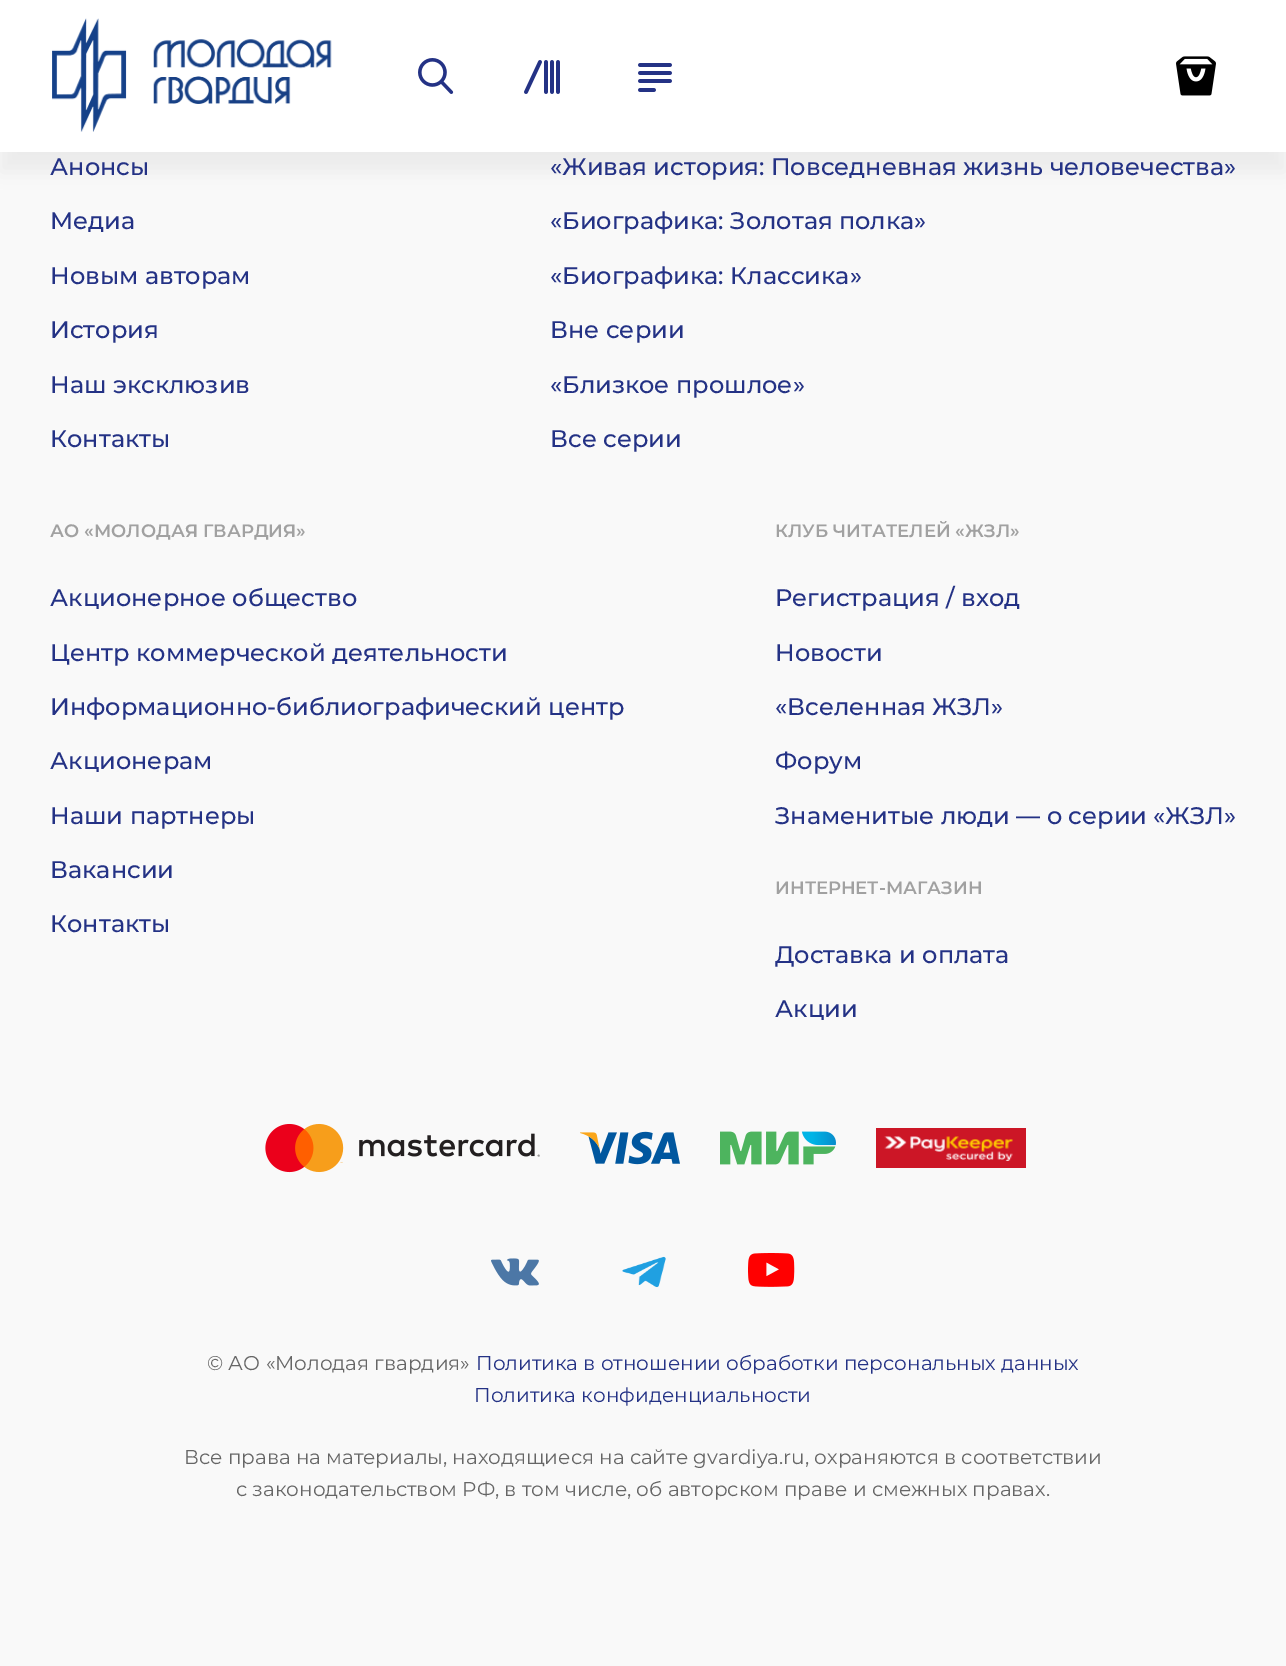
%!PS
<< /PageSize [1286 1666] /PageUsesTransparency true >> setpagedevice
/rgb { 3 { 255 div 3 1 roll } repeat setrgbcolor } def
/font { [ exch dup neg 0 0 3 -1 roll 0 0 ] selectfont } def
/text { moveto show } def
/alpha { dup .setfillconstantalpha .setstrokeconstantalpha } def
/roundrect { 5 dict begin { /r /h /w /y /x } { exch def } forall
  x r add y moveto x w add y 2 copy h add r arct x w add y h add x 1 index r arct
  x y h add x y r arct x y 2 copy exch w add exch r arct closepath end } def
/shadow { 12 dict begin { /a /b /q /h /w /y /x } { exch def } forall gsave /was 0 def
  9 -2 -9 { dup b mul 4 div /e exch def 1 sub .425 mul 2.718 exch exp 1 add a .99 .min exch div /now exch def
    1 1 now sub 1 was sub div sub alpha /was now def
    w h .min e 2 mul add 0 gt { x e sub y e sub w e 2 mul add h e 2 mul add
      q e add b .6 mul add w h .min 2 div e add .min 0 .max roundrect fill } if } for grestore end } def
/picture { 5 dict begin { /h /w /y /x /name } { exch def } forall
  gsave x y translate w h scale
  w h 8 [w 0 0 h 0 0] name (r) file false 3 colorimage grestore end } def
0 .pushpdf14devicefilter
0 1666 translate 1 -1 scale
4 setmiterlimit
249 249 249 rgb
0 0 1286 1666 rectfill
0 0 0 rgb
0 20 1286 152 0 10 0.05 shadow
255 255 255 rgb
0 0 1286 152 rectfill
(img_01.rgb) 52 18 75 114 picture
(img_02.rgb) 153 39 179 65 picture
(img_03.rgb) 418 58 36 36 picture
(img_04.rgb) 524 60 36 34 picture
(img_05.rgb) 638 63 34 29 picture
(img_06.rgb) 1176 56 40 40 picture
(img_07.rgb) 265 1123 275 50 picture
(img_08.rgb) 580 1131 100 34 picture
(img_09.rgb) 720 1131 116 34 picture
(img_10.rgb) 876 1128 150 40 picture
(img_11.rgb) 491 1258 48 28 picture
(img_12.rgb) 622 1256 44 32 picture
(img_13.rgb) 748 1253 47 34 picture
/Montserrat-Medium 24 font
36 50 133 rgb
(Анонсы) 50 175 text
(Медиа) 50 229 text
(Новым авторам) 50 284 text
(История) 50 338 text
(Наш эксклюзив) 50 393 text
(Контакты) 50 447 text
(«Живая история: Повседневная жизнь человечества») 550 175 text
(«Биографика: Золотая полка») 550 229 text
(«Биографика: Классика») 550 284 text
(Вне серии) 550 338 text
(«Близкое прошлое») 550 393 text
(Все серии) 550 447 text
/Montserrat-SemiBold 18 font
161 161 161 rgb
(АО «МОЛОДАЯ ГВАРДИЯ») 50 537 text
/Montserrat-Medium 24 font
36 50 133 rgb
(Акционерное общество) 50 606 text
(Центр коммерческой деятельности) 50 661 text
(Информационно-библиографический центр) 50 715 text
(Акционерам) 50 769 text
(Наши партнеры) 50 824 text
(Вакансии) 50 878 text
(Контакты) 50 932 text
/Montserrat-SemiBold 18 font
161 161 161 rgb
(КЛУБ ЧИТАТЕЛЕЙ «ЖЗЛ») 775 537 text
/Montserrat-Medium 24 font
36 50 133 rgb
(Регистрация / вход) 775 606 text
(Новости) 775 661 text
(«Вселенная ЖЗЛ») 775 715 text
(Форум) 775 769 text
(Знаменитые люди — о серии «ЖЗЛ») 775 824 text
/Montserrat-SemiBold 18 font
161 161 161 rgb
(ИНТЕРНЕТ-МАГАЗИН) 775 894 text
/Montserrat-Medium 24 font
36 50 133 rgb
(Доставка и оплата) 775 963 text
(Акции) 775 1017 text
/Montserrat-Regular 20 font
102 102 102 rgb
(© АО «Молодая гвардия») 207 1370 text
36 50 133 rgb
(Политика в отношении обработки персональных данных) 476 1370 text
(Политика конфиденциальности) 474 1402 text
102 102 102 rgb
(Все права на материалы, находящиеся на сайте gvardiya.ru, охраняются в соответствии) 184 1464 text
(с законодательством РФ, в том числе, об авторском праве и смежных правах.) 236 1496 text
.poppdf14devicefilter showpage
